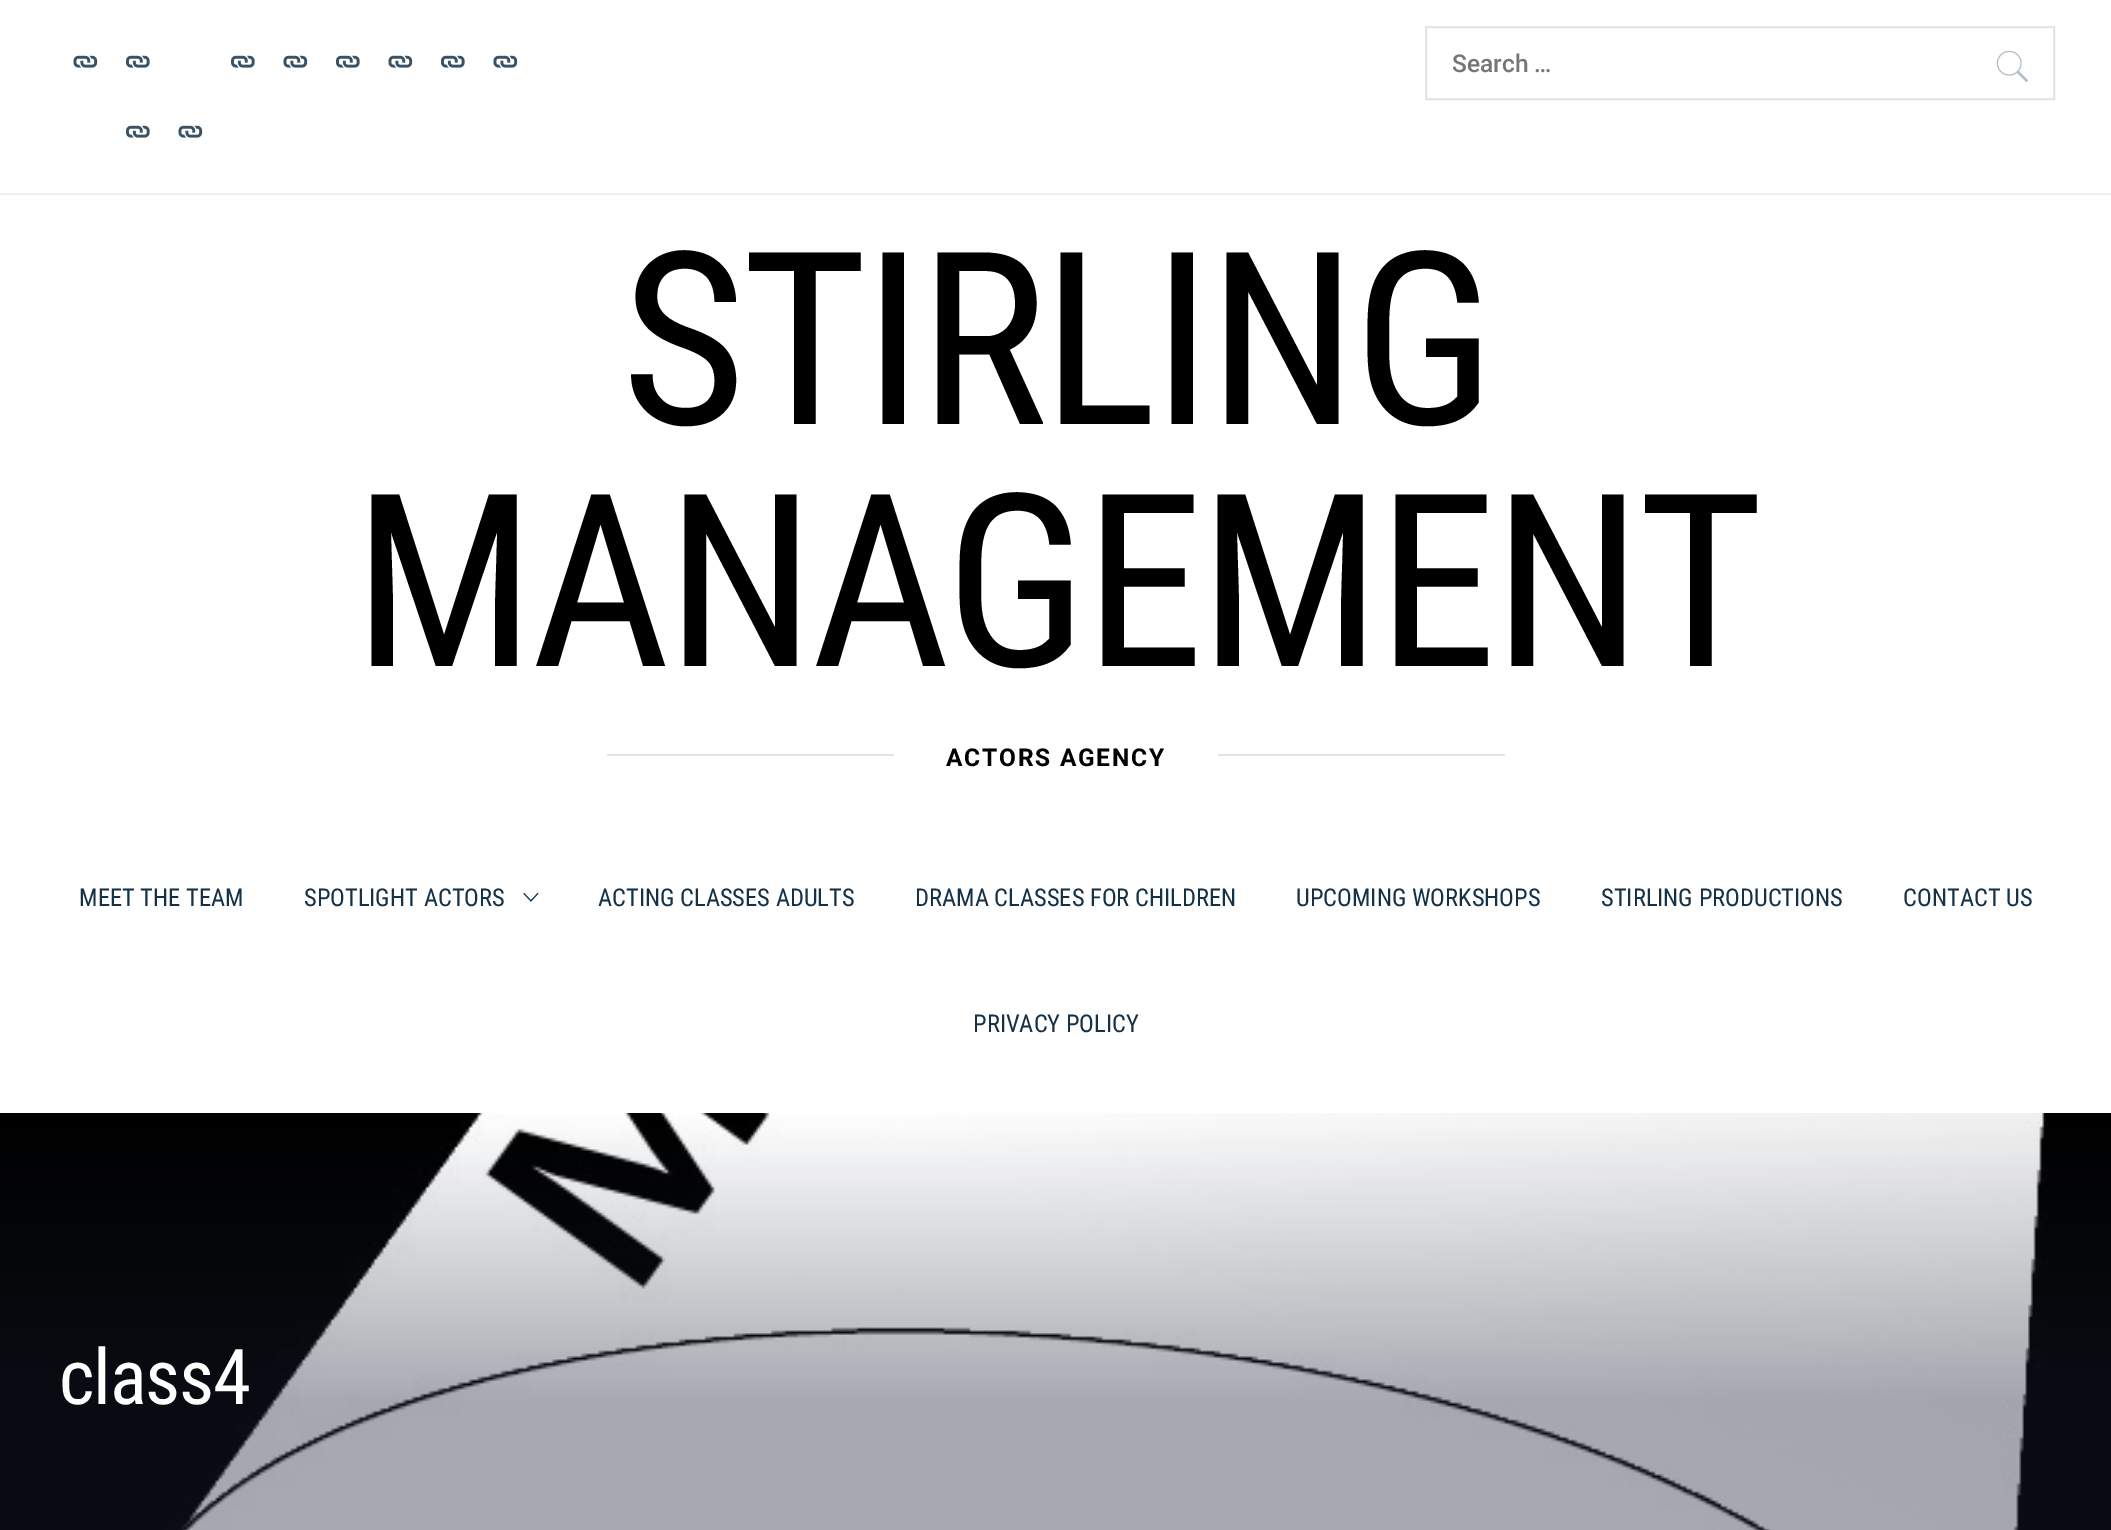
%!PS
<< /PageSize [2111 1530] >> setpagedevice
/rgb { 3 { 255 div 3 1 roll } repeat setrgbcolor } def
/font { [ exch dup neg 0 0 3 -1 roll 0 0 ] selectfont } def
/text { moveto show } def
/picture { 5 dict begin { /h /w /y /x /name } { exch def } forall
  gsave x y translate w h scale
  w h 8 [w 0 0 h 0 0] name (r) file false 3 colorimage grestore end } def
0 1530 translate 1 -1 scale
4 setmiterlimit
255 255 255 rgb
0 0 2111 1530 rectfill
239 239 239 rgb
0 193 2111 2 rectfill
(img_01.rgb) 73 55 25 13 picture
(img_02.rgb) 126 55 24 13 picture
(img_02.rgb) 126 125 24 13 picture
(img_01.rgb) 178 125 25 13 picture
(img_02.rgb) 231 55 24 13 picture
(img_01.rgb) 283 55 25 13 picture
(img_02.rgb) 336 55 24 13 picture
(img_01.rgb) 388 55 25 13 picture
(img_02.rgb) 441 55 24 13 picture
(img_01.rgb) 493 55 25 13 picture
228 228 228 rgb
2 setlinewidth
1426 27 628 72 rectstroke
(img_03.rgb) 1996 50 33 33 picture
607 754 898 2 rectfill
255 255 255 rgb
894 754 324 2 rectfill
(img_04.rgb) 523 892 16 10 picture
(img_05.rgb) 0 1113 2111 417 picture
gsave
1453 49 453 28 rectclip
/Roboto-Medium 24.5 font
117 117 117 rgb
(Search …) 1452 72 text
grestore
/RobotoCondensed-Regular 242 font
0 0 0 rgb
621 424 moveto -4.75 0 (STIRLING) ashow
353 666 moveto -4.75 0 (MANAGEMENT) ashow
/Roboto-Bold 24.5 font
946 766 moveto 1.75 0 (ACTORS AGENCY) ashow
/RobotoCondensed-Regular 24.5 font
20 49 72 rgb
(MEET THE TEAM) 79 906 text
(SPOTLIGHT ACTORS) 304 906 text
(ACTING CLASSES ADULTS) 598 906 text
(DRAMA CLASSES FOR CHILDREN) 915 906 text
(UPCOMING WORKSHOPS) 1296 906 text
(STIRLING PRODUCTIONS) 1601 906 text
(CONTACT US) 1903 906 text
(PRIVACY POLICY) 973 1032 text
/RobotoCondensed-Regular 77 font
255 255 255 rgb
59 1404 moveto -1.25 0 (class4) ashow
showpage
